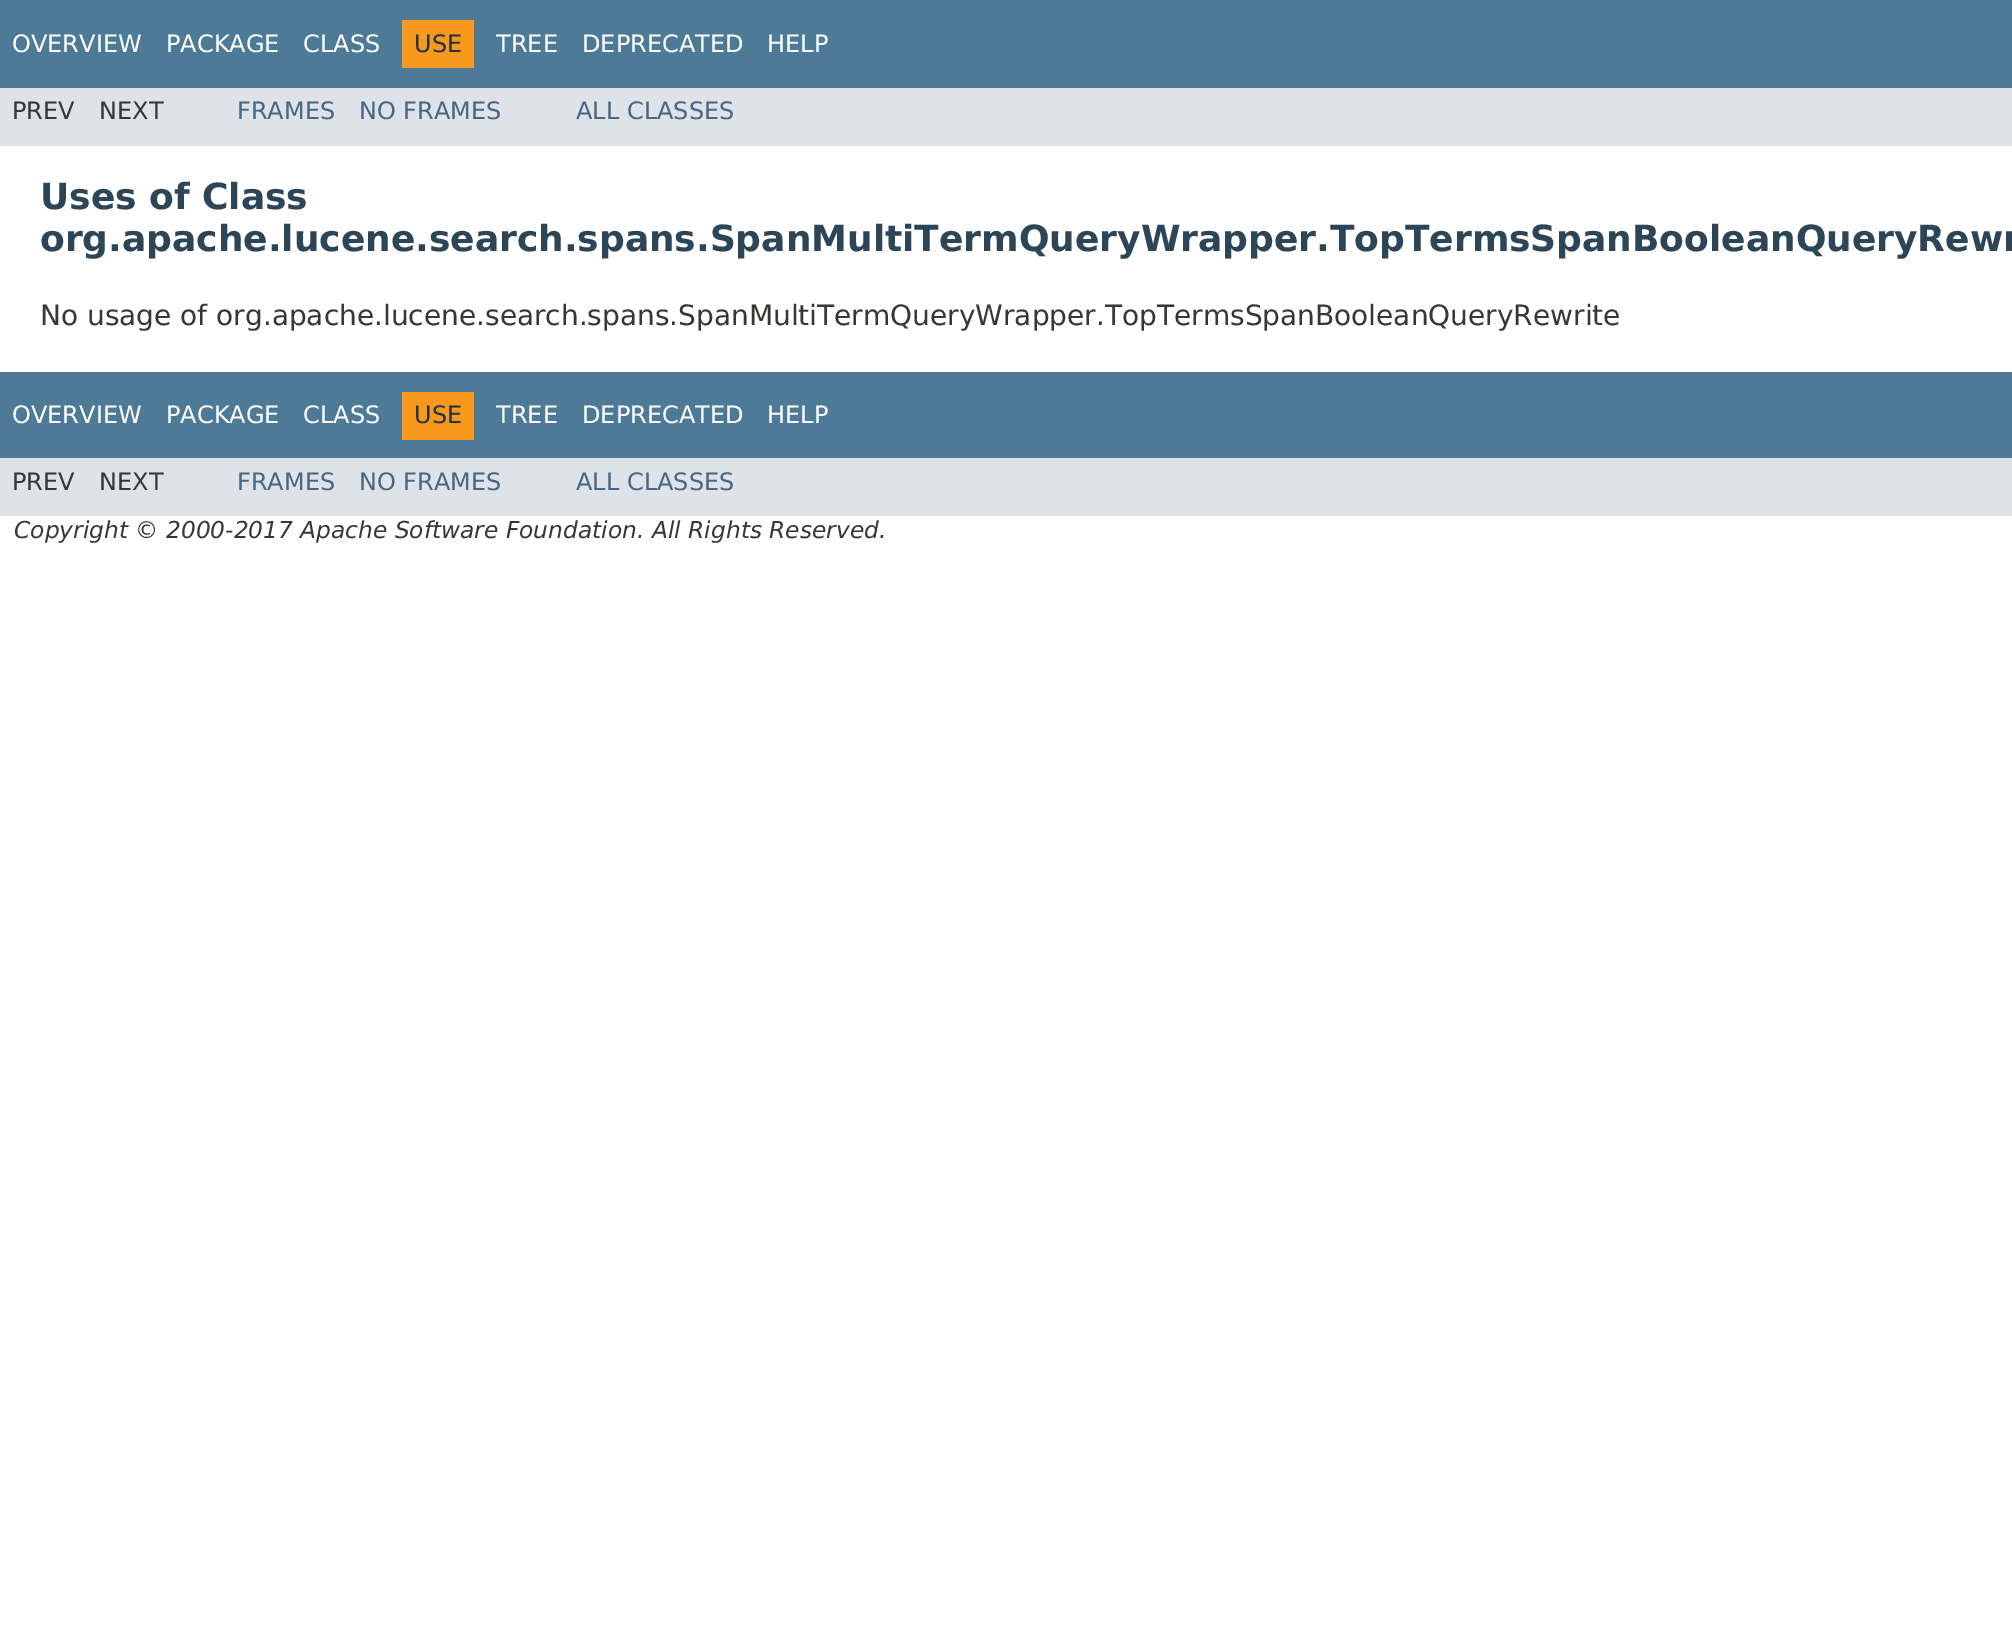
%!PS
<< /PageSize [2012 1643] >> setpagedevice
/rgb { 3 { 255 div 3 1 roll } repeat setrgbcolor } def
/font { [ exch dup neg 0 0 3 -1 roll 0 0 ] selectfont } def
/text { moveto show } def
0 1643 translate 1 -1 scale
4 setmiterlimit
255 255 255 rgb
0 0 2012 1643 rectfill
77 122 151 rgb
0 0 2012 88 rectfill
248 152 29 rgb
402 20 72 48 rectfill
222 227 233 rgb
0 88 2012 58 rectfill
77 122 151 rgb
0 372 2012 86 rectfill
248 152 29 rgb
402 392 72 48 rectfill
222 227 233 rgb
0 458 2012 58 rectfill
/DejaVuSans-Regular 24 font
255 255 255 rgb
(OVERVIEW) 12 52 text
(PACKAGE) 166 52 text
(CLASS) 303 52 text
37 52 65 rgb
(USE) 414 52 text
255 255 255 rgb
(TREE) 496 52 text
(DEPRECATED) 582 52 text
(HELP) 767 52 text
53 56 51 rgb
(PREV) 12 119 text
(NEXT) 99 119 text
74 103 130 rgb
(FRAMES) 237 119 text
(NO FRAMES) 359 119 text
(ALL CLASSES) 576 119 text
/DejaVuSans-Bold 36 font
44 69 87 rgb
(Uses of Class) 40 209 text
(org.apache.lucene.search.spans.SpanMultiTermQueryWrapper.TopTermsSpanBooleanQueryRewr) 40 251 text
/DejaVuSans-Regular 28 font
53 56 51 rgb
(No usage of org.apache.lucene.search.spans.SpanMultiTermQueryWrapper.TopTermsSpanBooleanQueryRewrite) 40 325 text
/DejaVuSans-Regular 24 font
255 255 255 rgb
(OVERVIEW) 12 423 text
(PACKAGE) 166 423 text
(CLASS) 303 423 text
37 52 65 rgb
(USE) 414 423 text
255 255 255 rgb
(TREE) 496 423 text
(DEPRECATED) 582 423 text
(HELP) 767 423 text
53 56 51 rgb
(PREV) 12 490 text
(NEXT) 99 490 text
74 103 130 rgb
(FRAMES) 237 490 text
(NO FRAMES) 359 490 text
(ALL CLASSES) 576 490 text
/DejaVuSans-Italic 23.3 font
53 56 51 rgb
(Copyright © 2000-2017 Apache Software Foundation.) 14 538 text
(All Rights Reserved.) 652 538 text
showpage
